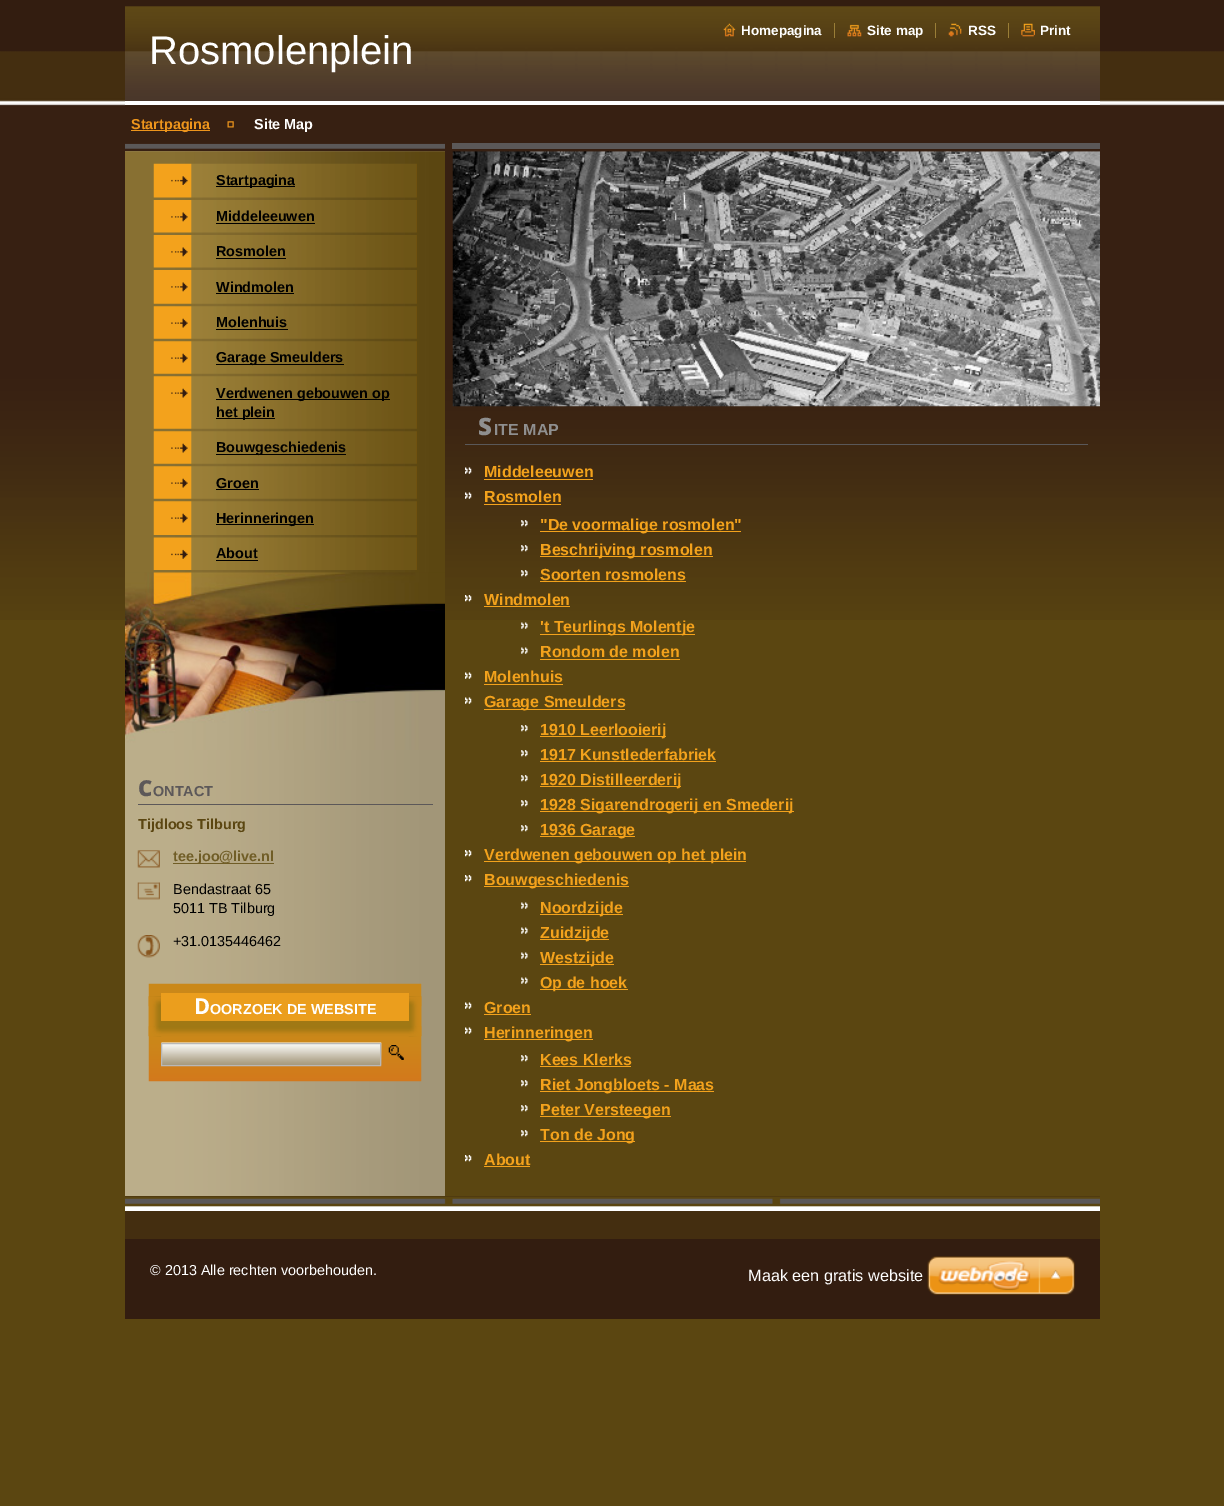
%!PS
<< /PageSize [1224 1506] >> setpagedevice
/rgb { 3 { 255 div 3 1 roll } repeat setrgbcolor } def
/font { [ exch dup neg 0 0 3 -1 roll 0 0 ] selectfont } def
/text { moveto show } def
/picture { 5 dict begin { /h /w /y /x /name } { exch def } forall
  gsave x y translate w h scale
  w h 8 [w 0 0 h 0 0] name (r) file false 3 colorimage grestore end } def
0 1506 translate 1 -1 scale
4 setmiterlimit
91 70 17 rgb
0 0 1224 1506 rectfill
(img_01.rgb) 0 0 1224 620 picture
(img_02.rgb) 125 151 320 1045 picture
(img_03.rgb) 125 0 975 101 picture
255 255 255 rgb
125 101 975 4 rectfill
(img_04.rgb) 723 23 13 14 picture
(img_05.rgb) 847 24 15 13 picture
154 126 55 rgb
834 23 1 15 rectfill
(img_06.rgb) 948 23 14 14 picture
935 23 1 15 rectfill
(img_07.rgb) 1021 23 14 14 picture
1008 23 1 15 rectfill
55 32 18 rgb
125 105 975 1 rectfill
237 149 28 rgb
131 130 79 1 rectfill
(img_08.rgb) 227 121 7 7 picture
(img_09.rgb) 125 143 320 9 picture
(img_10.rgb) 125 151 320 422 picture
(img_11.rgb) 153 163 264 35 picture
(img_12.rgb) 171 176 17 9 picture
0 0 0 rgb
216 186 79 1 rectfill
(img_13.rgb) 153 200 264 33 picture
(img_14.rgb) 171 212 17 10 picture
216 223 99 1 rectfill
(img_15.rgb) 153 235 264 33 picture
(img_14.rgb) 171 247 17 10 picture
216 258 70 1 rectfill
(img_16.rgb) 153 270 264 34 picture
(img_14.rgb) 171 282 17 10 picture
216 293 78 1 rectfill
(img_17.rgb) 153 306 264 33 picture
(img_18.rgb) 171 318 17 10 picture
216 329 72 1 rectfill
(img_19.rgb) 153 341 264 33 picture
(img_18.rgb) 171 353 17 10 picture
216 364 128 1 rectfill
(img_20.rgb) 153 376 264 53 picture
(img_18.rgb) 171 388 17 10 picture
216 399 174 1 rectfill
216 418 59 1 rectfill
(img_21.rgb) 153 431 264 33 picture
(img_18.rgb) 171 443 17 10 picture
216 454 130 1 rectfill
(img_22.rgb) 153 466 264 33 picture
(img_18.rgb) 171 478 17 10 picture
216 489 43 1 rectfill
(img_23.rgb) 153 501 264 34 picture
(img_18.rgb) 171 513 17 10 picture
216 524 98 1 rectfill
(img_24.rgb) 153 537 264 33 picture
(img_25.rgb) 171 549 17 10 picture
216 560 42 1 rectfill
(img_26.rgb) 125 572 320 178 picture
92 88 89 rgb
138 804 295 1 rectfill
(img_27.rgb) 137 850 23 18 picture
112 93 38 rgb
173 863 101 1 rectfill
(img_28.rgb) 137 882 23 18 picture
(img_29.rgb) 137 935 23 23 picture
(img_30.rgb) 148 983 274 99 picture
160 120 20 rgb
149 996 272 31 rectfill
(img_31.rgb) 148 996 274 41 picture
(img_32.rgb) 148 996 274 11 picture
235 158 29 rgb
161 993 248 28 rectfill
(img_33.rgb) 148 1026 274 11 picture
(img_34.rgb) 161 1042 221 23 picture
184 184 184 rgb
161.5 1043.5 219 22 rectstroke
(img_35.rgb) 388 1045 16 15 picture
91 88 88 rgb
452 143 648 6 rectfill
(img_36.rgb) 452 151 648 256 picture
90 88 89 rgb
465 444 623 1 rectfill
(img_37.rgb) 465 467 7 7 picture
243 162 28 rgb
484 479 109 1 rectfill
(img_38.rgb) 465 492 7 7 picture
484 504 77 1 rectfill
(img_39.rgb) 521 520 7 7 picture
540 531 201 1 rectfill
(img_40.rgb) 521 545 7 7 picture
540 556 173 1 rectfill
(img_41.rgb) 521 570 7 7 picture
540 581 146 1 rectfill
(img_42.rgb) 465 595 7 7 picture
484 606 86 1 rectfill
(img_43.rgb) 521 622 7 7 picture
540 634 155 1 rectfill
(img_43.rgb) 521 647 7 7 picture
540 659 140 1 rectfill
(img_44.rgb) 465 672 7 7 picture
484 684 79 1 rectfill
(img_44.rgb) 465 697 7 7 picture
484 709 141 1 rectfill
(img_45.rgb) 521 725 7 7 picture
540 736 126 1 rectfill
(img_45.rgb) 521 750 7 7 picture
540 761 176 1 rectfill
(img_45.rgb) 521 775 7 7 picture
540 786 141 1 rectfill
(img_45.rgb) 521 800 7 7 picture
540 811 254 1 rectfill
(img_45.rgb) 521 825 7 7 picture
540 836 95 1 rectfill
(img_46.rgb) 465 850 7 7 picture
484 861 262 1 rectfill
(img_46.rgb) 465 875 7 7 picture
484 886 145 1 rectfill
(img_43.rgb) 521 902 7 7 picture
540 914 83 1 rectfill
(img_43.rgb) 521 927 7 7 picture
540 939 69 1 rectfill
(img_43.rgb) 521 952 7 7 picture
540 964 74 1 rectfill
(img_43.rgb) 521 977 7 7 picture
540 989 88 1 rectfill
(img_44.rgb) 465 1002 7 7 picture
484 1014 47 1 rectfill
(img_44.rgb) 465 1027 7 7 picture
484 1039 109 1 rectfill
(img_45.rgb) 521 1055 7 7 picture
540 1066 91 1 rectfill
(img_45.rgb) 521 1080 7 7 picture
540 1091 174 1 rectfill
(img_45.rgb) 521 1105 7 7 picture
540 1116 131 1 rectfill
(img_45.rgb) 521 1130 7 7 picture
540 1141 95 1 rectfill
(img_46.rgb) 465 1155 7 7 picture
484 1166 46 1 rectfill
51 29 16 rgb
125 1196 975 123 rectfill
(img_47.rgb) 125 1196 975 15 picture
68 46 16 rgb
125 1211 975 28 rectfill
(img_48.rgb) 927 1256 148 39 picture
/LiberationSans-Bold 13.5 font
255 255 255 rgb
(Homepagina) 741 35 text
(Site map) 867 35 text
(RSS) 968 35 text
(Print) 1040 35 text
/LiberationSans-Regular 40 font
(Rosmolenplein) 149 64 text
/LiberationSans-Bold 14.4 font
237 149 28 rgb
(Startpagina) 131 129 text
255 255 255 rgb
(Site Map) 254 129 text
0 0 0 rgb
(Startpagina) 216 185 text
(Middeleeuwen) 216 221 text
(Rosmolen) 216 256 text
(Windmolen) 216 292 text
(Molenhuis) 216 327 text
(Garage Smeulders) 216 362 text
(Verdwenen gebouwen op) 216 398 text
(het plein) 216 417 text
(Bouwgeschiedenis) 216 452 text
(Groen) 216 488 text
(Herinneringen) 216 523 text
(About) 216 558 text
/NotoSans-Black 22 font
92 88 89 rgb
(C) 138 796 text
/LiberationSans-Bold 14.4 font
(ONTACT) 153 796 text
91 70 17 rgb
(Tijdloos Tilburg) 138 829 text
112 93 38 rgb
(tee.joo@live.nl) 173 861 text
/LiberationSans-Regular 14.4 font
0 0 0 rgb
(Bendastraat 65) 173 894 text
(5011 TB Tilburg) 173 913 text
(+31.0135446462) 173 946 text
/NotoSans-Bold 22 font
255 255 255 rgb
(D) 194 1014 text
/LiberationSans-Bold 14.4 font
(OORZOEK DE WEBSITE) 210 1014 text
/NotoSans-Black 24 font
143 143 143 rgb
(S) 478 435 text
/LiberationSans-Bold 16 font
(ITE MAP) 494 435 text
243 162 28 rgb
(Middeleeuwen) 484 477 text
(Rosmolen) 484 502 text
("De voormalige rosmolen") 540 530 text
(Beschrijving rosmolen) 540 555 text
(Soorten rosmolens) 540 580 text
(Windmolen) 484 605 text
('t Teurlings Molentje) 540 632 text
(Rondom de molen) 540 657 text
(Molenhuis) 484 682 text
(Garage Smeulders) 484 707 text
(1910 Leerlooierij) 540 735 text
(1917 Kunstlederfabriek) 540 760 text
(1920 Distilleerderij) 540 785 text
(1928 Sigarendrogerij en Smederij) 540 810 text
(1936 Garage) 540 835 text
(Verdwenen gebouwen op het plein) 484 860 text
(Bouwgeschiedenis) 484 885 text
(Noordzijde) 540 913 text
(Zuidzijde) 540 938 text
(Westzijde) 540 963 text
(Op de hoek) 540 988 text
(Groen) 484 1013 text
(Herinneringen) 484 1038 text
(Kees Klerks) 540 1065 text
(Riet Jongbloets - Maas) 540 1090 text
(Peter Versteegen) 540 1115 text
(Ton de Jong) 540 1140 text
(About) 484 1165 text
/LiberationSans-Regular 14.4 font
255 255 255 rgb
(© 2013 Alle rechten voorbehouden.) 150 1275 text
/LiberationSans-Regular 16.25 font
(Maak een gratis website) 748 1281 text
showpage
